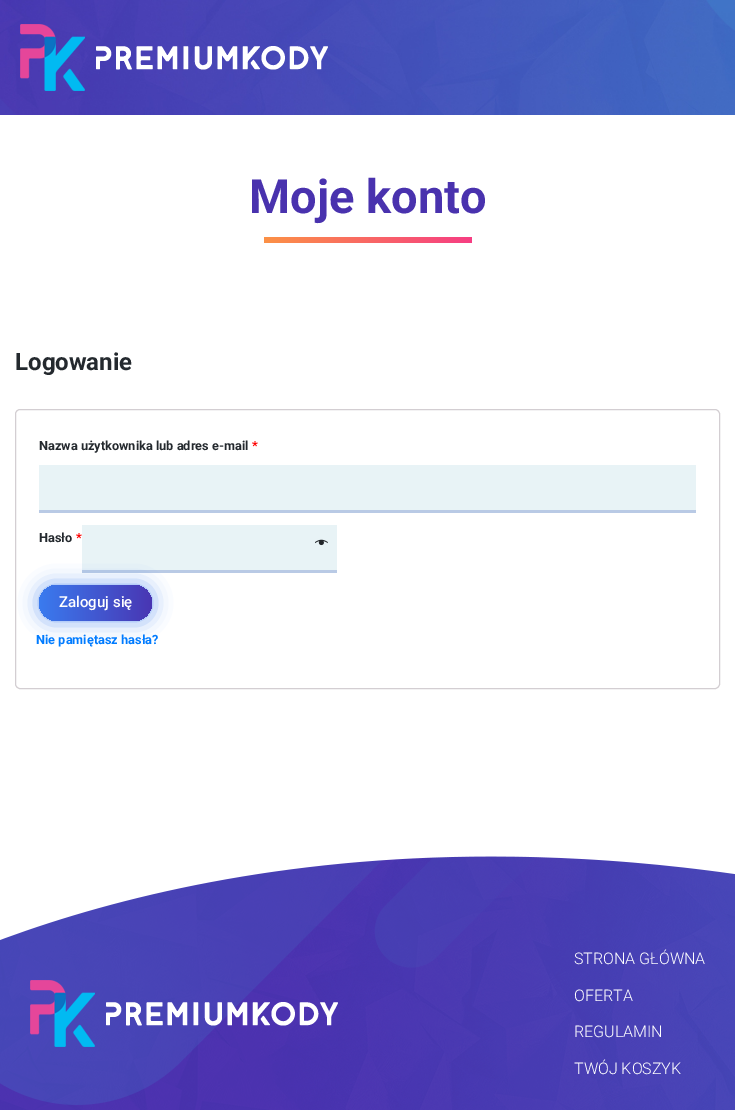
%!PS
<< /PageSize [735 1110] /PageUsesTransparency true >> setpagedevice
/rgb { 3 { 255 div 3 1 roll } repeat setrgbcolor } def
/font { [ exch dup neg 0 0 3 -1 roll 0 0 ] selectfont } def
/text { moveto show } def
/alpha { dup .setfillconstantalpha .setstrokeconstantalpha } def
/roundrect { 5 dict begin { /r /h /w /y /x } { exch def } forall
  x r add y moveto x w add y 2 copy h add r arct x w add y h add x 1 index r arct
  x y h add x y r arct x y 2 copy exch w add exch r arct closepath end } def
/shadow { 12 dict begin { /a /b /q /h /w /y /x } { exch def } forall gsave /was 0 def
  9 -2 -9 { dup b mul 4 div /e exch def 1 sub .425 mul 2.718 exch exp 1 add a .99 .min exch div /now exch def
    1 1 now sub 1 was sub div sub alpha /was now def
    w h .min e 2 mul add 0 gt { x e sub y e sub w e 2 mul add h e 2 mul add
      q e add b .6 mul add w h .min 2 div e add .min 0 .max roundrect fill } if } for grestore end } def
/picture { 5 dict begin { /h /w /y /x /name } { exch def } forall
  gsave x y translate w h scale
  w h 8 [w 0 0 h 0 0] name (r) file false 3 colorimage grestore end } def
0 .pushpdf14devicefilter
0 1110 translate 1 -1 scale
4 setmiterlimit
255 255 255 rgb
0 0 735 1110 rectfill
(img_01.rgb) 0 0 735 115 picture
(img_02.rgb) 20 24 308 67 picture
gsave 264 237 208 6 3 roundrect clip newpath
<< /ShadingType 2 /ColorSpace /DeviceRGB /Coords [264 240 472 240] /Extend [true true] /Function << /FunctionType 2 /Domain [0 1] /C0 [0.988 0.569 0.275] /C1 [0.965 0.243 0.514] /N 1 >> >> shfill grestore
211 206 210 rgb
15.5 409.5 704 279 4.5 roundrect stroke
232 243 246 rgb
39 465 657 45 rectfill
185 202 229 rgb
39 510 657 3 rectfill
232 243 246 rgb
82 525 255 45 rectfill
185 202 229 rgb
82 570 255 3 rectfill
(img_03.rgb) 315 539 13 7 picture
58 123 239 rgb
40 586 111 34 17 10 0.75 shadow
gsave 39 585 113 36 18 roundrect clip newpath
<< /ShadingType 2 /ColorSpace /DeviceRGB /Coords [39 603 152 603] /Extend [true true] /Function << /FunctionType 2 /Domain [0 1] /C0 [0.227 0.482 0.937] /C1 [0.286 0.212 0.702] /N 1 >> >> shfill grestore
(img_04.rgb) 0 856 735 254 picture
(img_05.rgb) 30 980 308 67 picture
/Roboto-Bold 47 font
73 50 174 rgb
(Moje konto) 249 213 text
/Roboto-Bold 24 font
36 41 46 rgb
(Logowanie) 15 370 text
/Roboto-Bold 12.75 font
(Nazwa użytkownika lub adres e-mail) 39 450 text
255 0 0 rgb
(*) 252 450 text
36 41 46 rgb
(Hasło) 39 542 text
255 0 0 rgb
(*) 76 542 text
/Roboto-Medium 15 font
255 255 255 rgb
(Zaloguj się) 59 607 text
/Roboto-Bold 12.75 font
0 123 255 rgb
(Nie pamiętasz hasła?) 36 644 text
/Roboto-Light 16 font
255 255 255 rgb
(STRONA GŁÓWNA) 574 964 text
(OFERTA) 574 1001 text
(REGULAMIN) 574 1037 text
(TWÓJ KOSZYK) 574 1074 text
.poppdf14devicefilter showpage
